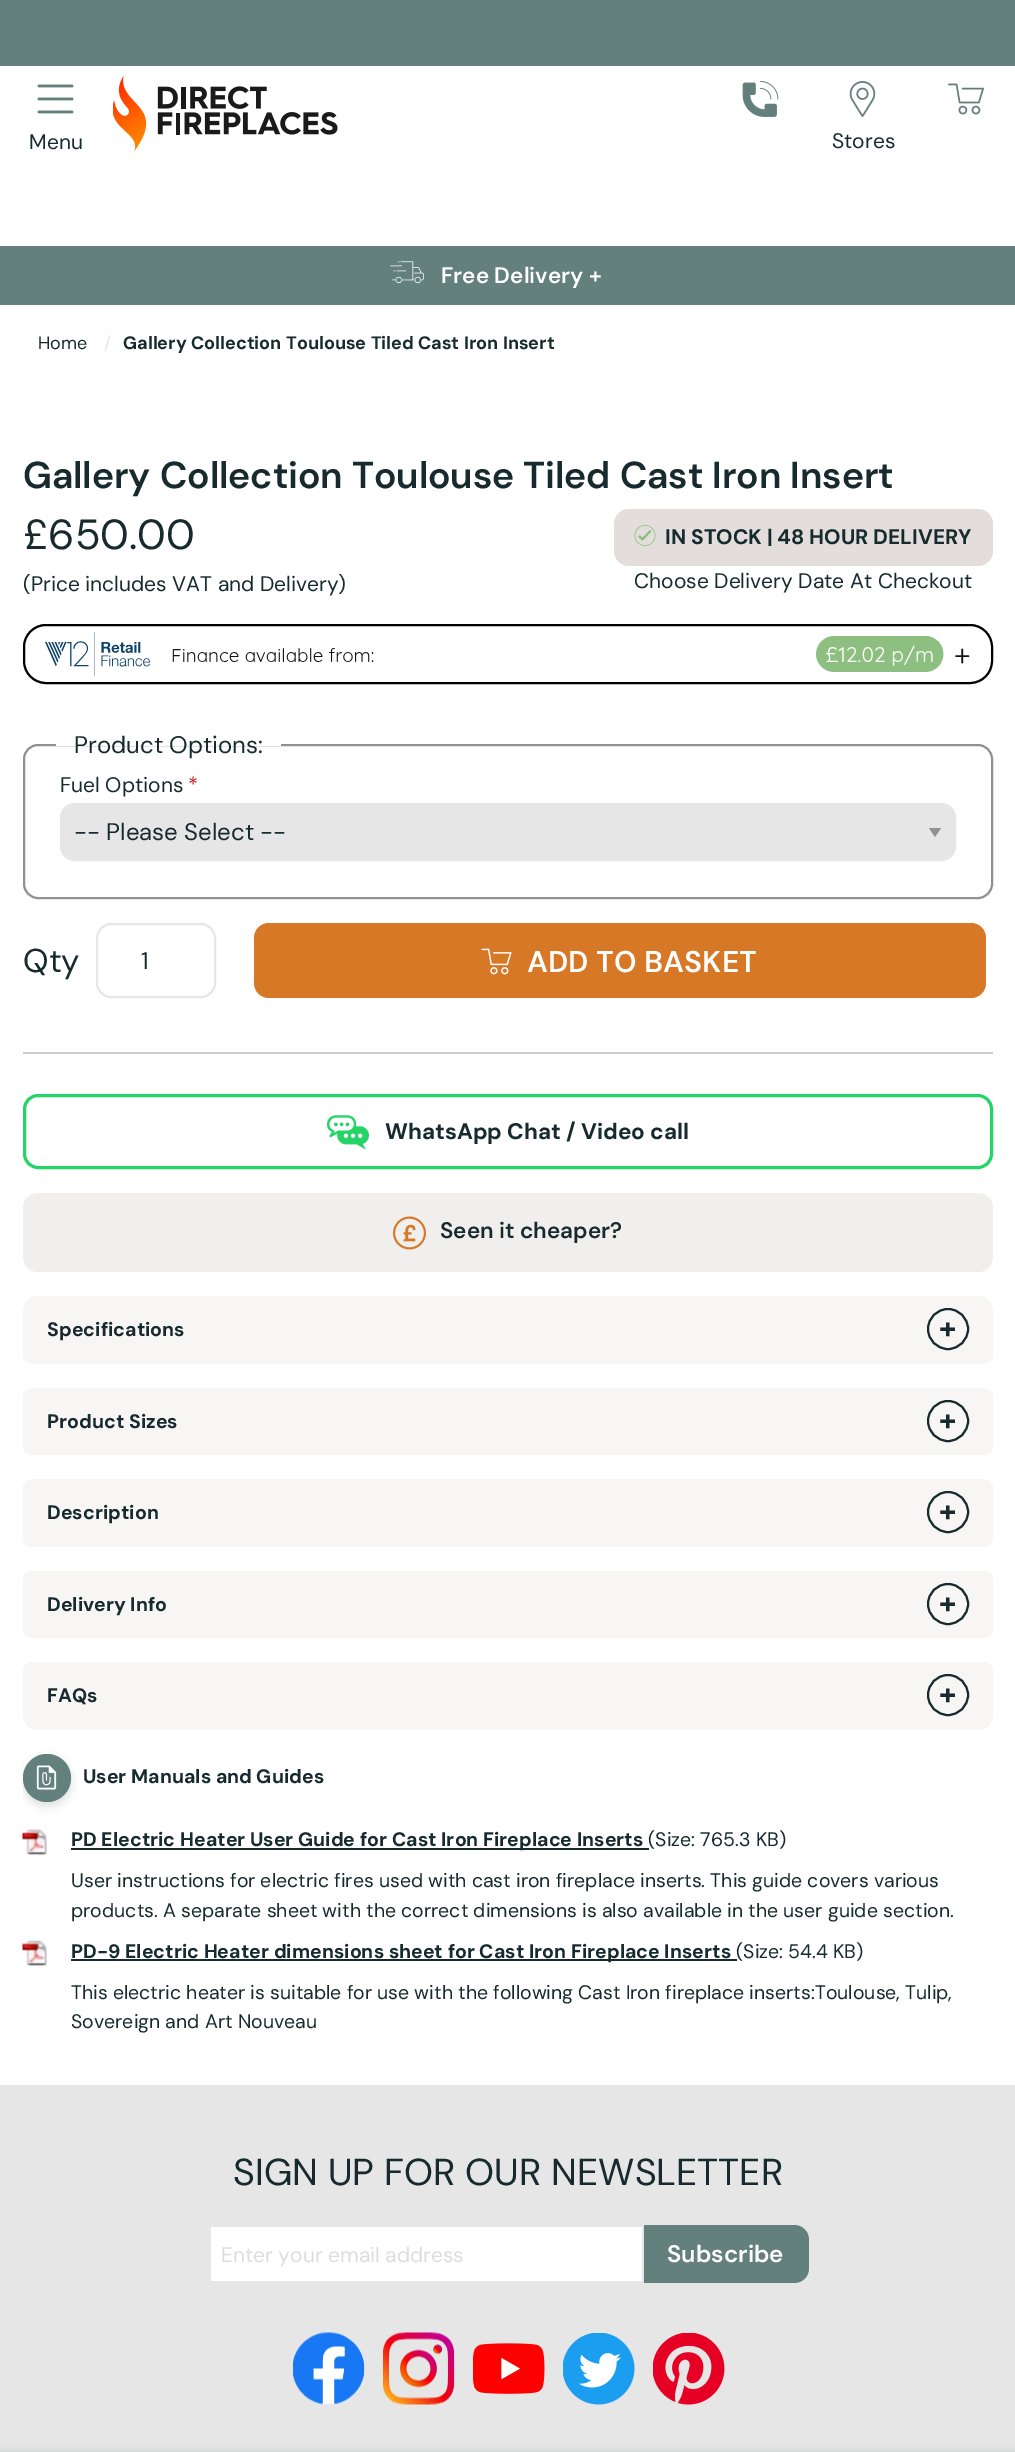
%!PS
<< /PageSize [1015 2452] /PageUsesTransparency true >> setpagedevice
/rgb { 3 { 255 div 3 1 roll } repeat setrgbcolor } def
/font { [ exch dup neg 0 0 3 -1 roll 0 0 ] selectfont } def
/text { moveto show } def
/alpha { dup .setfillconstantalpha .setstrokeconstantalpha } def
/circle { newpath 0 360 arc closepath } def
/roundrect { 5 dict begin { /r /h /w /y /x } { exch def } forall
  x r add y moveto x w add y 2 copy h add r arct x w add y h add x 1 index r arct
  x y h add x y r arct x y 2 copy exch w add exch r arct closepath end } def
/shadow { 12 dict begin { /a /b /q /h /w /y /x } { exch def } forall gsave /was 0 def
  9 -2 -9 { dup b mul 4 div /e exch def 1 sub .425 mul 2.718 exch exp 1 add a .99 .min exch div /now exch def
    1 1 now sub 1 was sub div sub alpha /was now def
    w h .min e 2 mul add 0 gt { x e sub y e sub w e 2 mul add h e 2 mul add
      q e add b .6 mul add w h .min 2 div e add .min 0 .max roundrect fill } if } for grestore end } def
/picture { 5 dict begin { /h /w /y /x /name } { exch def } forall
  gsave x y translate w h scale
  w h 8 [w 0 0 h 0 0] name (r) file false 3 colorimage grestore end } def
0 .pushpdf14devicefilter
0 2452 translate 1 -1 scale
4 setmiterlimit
255 255 255 rgb
0 0 1015 2452 rectfill
99 128 125 rgb
0 0 1015 66 rectfill
(img_01.rgb) 37 84 37 30 picture
(img_02.rgb) 113 75 225 77 picture
(img_03.rgb) 742 81 37 36 picture
(img_04.rgb) 948 83 36 32 picture
(img_05.rgb) 849 81 27 36 picture
0 246 1015 59 rectfill
(img_06.rgb) 390 261 34 23 picture
227 222 219 rgb
614 509 379 57 15 roundrect fill
(img_07.rgb) 634 525 22 21 picture
0 0 0 rgb
2 setlinewidth
24 625 968 58 22 roundrect stroke
(img_08.rgb) 45 632 925 45 picture
145 145 145 rgb
24 745 968 153 14 roundrect stroke
255 255 255 rgb
56 744 225 2 rectfill
230 230 230 rgb
60 803 896 58 15 roundrect fill
145 145 145 rgb
929 828 moveto 12 0 rlineto -6 9 rlineto closepath fill
230 230 230 rgb
61 804 894 56 14 roundrect stroke
97 924 118 73 14 roundrect stroke
214 120 38 rgb
254 923 732 75 15 roundrect fill
(img_09.rgb) 481 948 31 27 picture
206 206 206 rgb
23 1052 970 2 rectfill
37 211 102 rgb
3 setlinewidth
24.5 1095.5 967 72 13.5 roundrect stroke
(img_10.rgb) 327 1115 42 35 picture
241 239 237 rgb
23 1193 970 79 15 roundrect fill
(img_11.rgb) 393 1216 33 34 picture
gsave
23 1296 970 68 9 roundrect clip newpath
248 245 245 rgb
38 1296 moveto 940 0 rlineto 8.5 0 15 6.5 15 15 rcurveto 0 44 rlineto 0 5 -4 9 -9 9 rcurveto -952 0 rlineto -5 0 -9 -4 -9 -9 rcurveto 0 -44 rlineto 0 -8.5 6.5 -15 15 -15 rcurveto closepath fill
grestore
23 43 46 rgb
2 setlinewidth
948 1329 20 circle stroke
248 245 245 rgb
23 1388 970 67 9 roundrect fill
23 43 46 rgb
948 1421 20 circle stroke
248 245 245 rgb
23 1479 970 68 9 roundrect fill
23 43 46 rgb
948 1512 20 circle stroke
248 245 245 rgb
23 1571 970 67 9 roundrect fill
23 43 46 rgb
948 1604 20 circle stroke
gsave
23 1662 970 68 9 roundrect clip newpath
248 245 245 rgb
32 1662 moveto 952 0 rlineto 5 0 9 4 9 9 rcurveto 0 44 rlineto 0 8.5 -6.5 15 -15 15 rcurveto -940 0 rlineto -8.5 0 -15 -6.5 -15 -15 rcurveto 0 -44 rlineto 0 -5 4 -9 9 -9 rcurveto closepath fill
grestore
948 1695 20 circle stroke
gsave
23 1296 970 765 rectclip
23 1758 48 48 24 4.5 0.15 shadow
grestore
99 128 125 rgb
47 1778 24 circle fill
(img_12.rgb) 36 1765 21 25 picture
(img_13.rgb) 22 1829 25 26 picture
23 43 46 rgb
71 1848 578 2 rectfill
(img_14.rgb) 22 1940 25 26 picture
71 1959 666 2 rectfill
230 230 230 rgb
0 2085 1015 367 rectfill
255 255 255 rgb
211 2227 431 54 rectfill
99 128 125 rgb
644 2225 moveto 150 0 rlineto 8.5 0 15 6.5 15 15 rcurveto 0 28 rlineto 0 8.5 -6.5 15 -15 15 rcurveto -150 0 rlineto closepath fill
(img_15.rgb) 293 2332 72 73 picture
(img_16.rgb) 383 2332 72 73 picture
(img_17.rgb) 473 2343 72 51 picture
(img_18.rgb) 563 2333 72 72 picture
(img_19.rgb) 653 2333 72 72 picture
23 43 46 rgb
-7 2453 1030 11 0 4 0.2 shadow
/DMSans-Regular 21 font
(Menu) 29 149 text
(Stores) 832 148 text
/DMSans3-SemiBold 22.5 font
255 255 255 rgb
(Free Delivery +) 441 283 text
/DMSans-Regular 18 font
23 43 46 rgb
(Home) 38 349 text
230 230 230 rgb
(/) 104 349 text
/DMSans-Bold 18 font
23 43 46 rgb
(Gallery Collection Toulouse Tiled Cast Iron Insert) 123 349 text
/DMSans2-SemiBold 37.5 font
(Gallery Collection Toulouse Tiled Cast Iron Insert) 23 488 text
/DMSans-Regular 42 font
(£650.00) 23 549 text
/DMSans-Regular 21 font
(\(Price includes VAT and Delivery\)) 23 591 text
/DMSans2-Bold 21 font
(IN STOCK | 48 HOUR DELIVERY) 665 544 text
/DMSans-Regular 21 font
(Choose Delivery Date At Checkout) 634 588 text
/DMSans-Regular 24 font
(Product Options:) 74 753 text
/DMSans-Regular 21 font
(Fuel Options) 60 792 text
201 36 28 rgb
(*) 188 792 text
/DMSans-Regular 24 font
23 43 46 rgb
(-- Please Select --) 74 840 text
/DMSans-Regular 33 font
(Qty) 23 972 text
/DMSans-Regular 24 font
(1) 141 969 text
/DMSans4-SemiBold 30 font
255 255 255 rgb
(ADD TO BASKET) 527 972 text
/DMSans3-Bold 22.5 font
23 43 46 rgb
(WhatsApp Chat / Video call) 385 1139 text
/DMSans3-SemiBold 22.5 font
(Seen it cheaper?) 440 1238 text
/DMSans4-Bold 19.5 font
(Specifications) 47 1336 text
/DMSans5-Bold 30 font
(+) 939 1338 text
/DMSans4-Bold 19.5 font
(Product Sizes) 47 1428 text
/DMSans5-Bold 30 font
(+) 939 1430 text
/DMSans4-Bold 19.5 font
(Description) 47 1519 text
/DMSans5-Bold 30 font
(+) 939 1521 text
/DMSans4-Bold 19.5 font
(Delivery Info) 47 1611 text
/DMSans5-Bold 30 font
(+) 939 1613 text
/DMSans4-Bold 19.5 font
(FAQs) 47 1702 text
/DMSans5-Bold 30 font
(+) 939 1704 text
/DMSans4-Bold 19.5 font
(User Manuals and Guides) 83 1783 text
(PD Electric Heater User Guide for Cast Iron Fireplace Inserts) 71 1846 text
/DMSans-Regular 19.5 font
(\(Size: 765.3 KB\)) 648 1846 text
(User instructions for electric fires used with cast iron fireplace inserts. This guide covers various) 71 1887 text
(products. A separate sheet with the correct dimensions is also available in the user guide section.) 71 1917 text
/DMSans4-Bold 19.5 font
(PD-9 Electric Heater dimensions sheet for Cast Iron Fireplace Inserts) 71 1958 text
/DMSans-Regular 19.5 font
(\(Size: 54.4 KB\)) 736 1958 text
(This electric heater is suitable for use with the following Cast Iron fireplace inserts:Toulouse, Tulip,) 71 1999 text
(Sovereign and Art Nouveau) 71 2028 text
/DMSans-Regular 37.5 font
(SIGN UP FOR OUR NEWSLETTER) 233 2185 text
/DMSans-Regular 21 font
221 221 221 rgb
(Enter your email address) 221 2262 text
/DMSans-SemiBold 24 font
255 255 255 rgb
(Subscribe) 667 2262 text
.poppdf14devicefilter showpage
